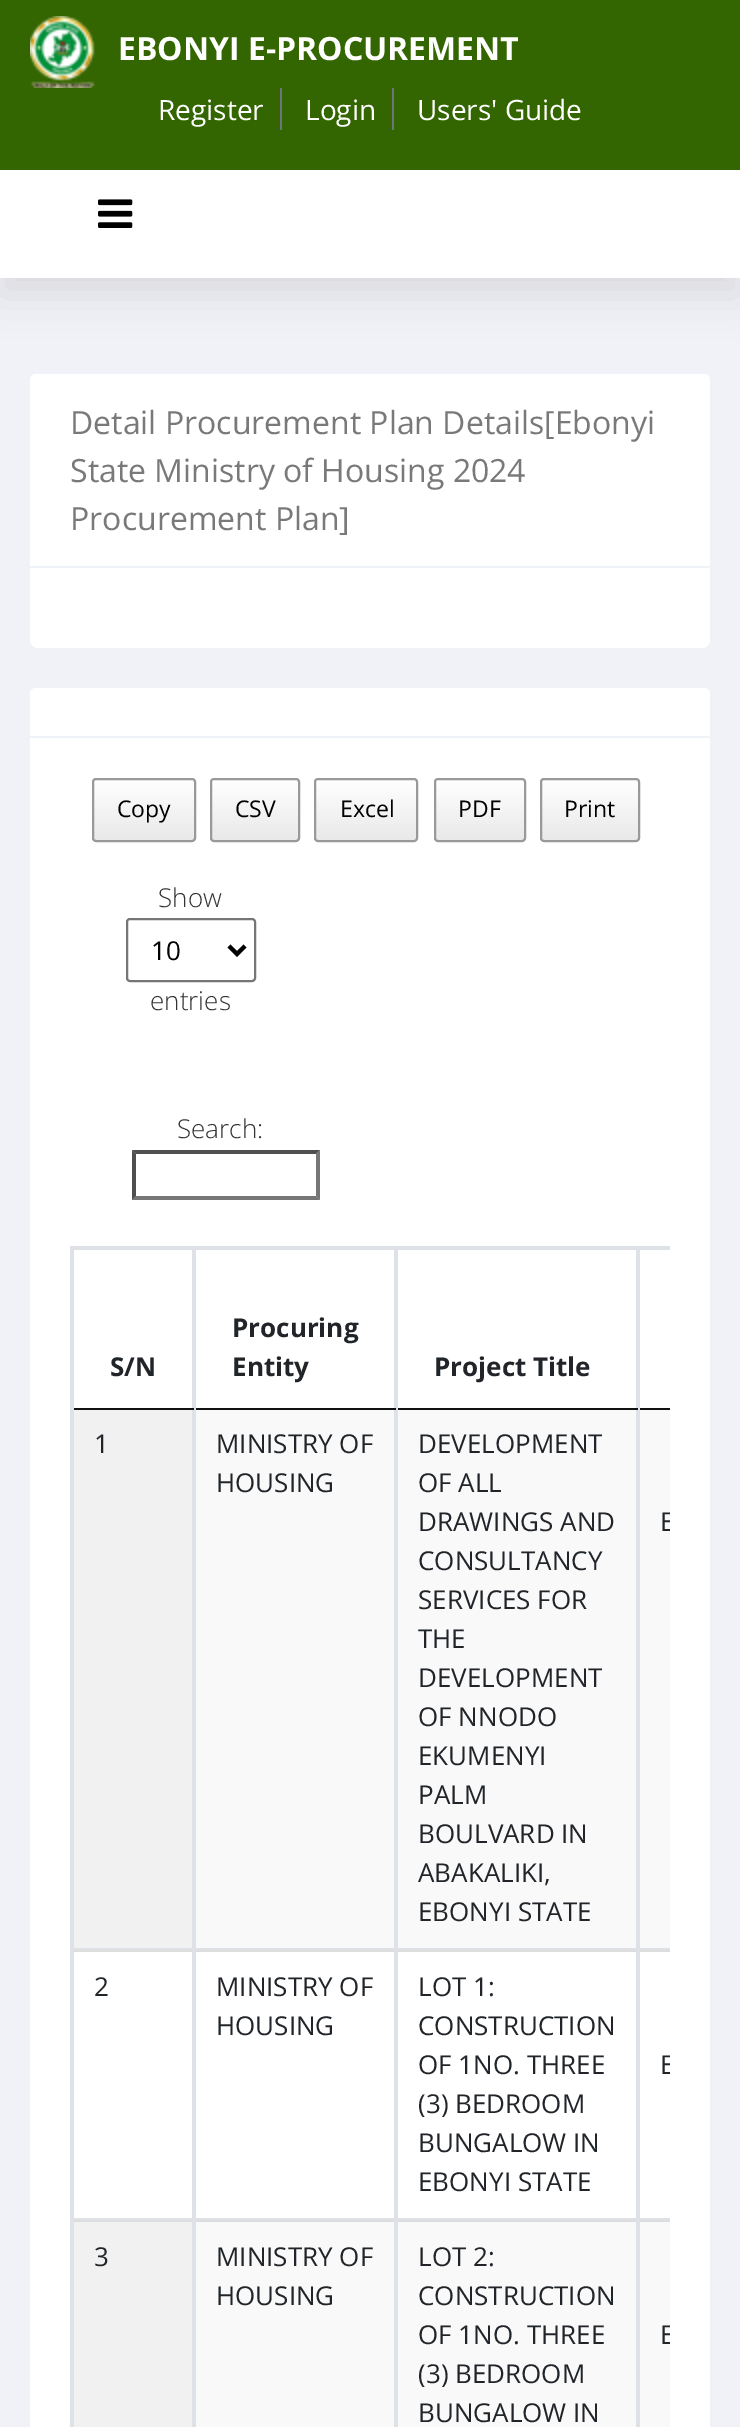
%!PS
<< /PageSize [740 2427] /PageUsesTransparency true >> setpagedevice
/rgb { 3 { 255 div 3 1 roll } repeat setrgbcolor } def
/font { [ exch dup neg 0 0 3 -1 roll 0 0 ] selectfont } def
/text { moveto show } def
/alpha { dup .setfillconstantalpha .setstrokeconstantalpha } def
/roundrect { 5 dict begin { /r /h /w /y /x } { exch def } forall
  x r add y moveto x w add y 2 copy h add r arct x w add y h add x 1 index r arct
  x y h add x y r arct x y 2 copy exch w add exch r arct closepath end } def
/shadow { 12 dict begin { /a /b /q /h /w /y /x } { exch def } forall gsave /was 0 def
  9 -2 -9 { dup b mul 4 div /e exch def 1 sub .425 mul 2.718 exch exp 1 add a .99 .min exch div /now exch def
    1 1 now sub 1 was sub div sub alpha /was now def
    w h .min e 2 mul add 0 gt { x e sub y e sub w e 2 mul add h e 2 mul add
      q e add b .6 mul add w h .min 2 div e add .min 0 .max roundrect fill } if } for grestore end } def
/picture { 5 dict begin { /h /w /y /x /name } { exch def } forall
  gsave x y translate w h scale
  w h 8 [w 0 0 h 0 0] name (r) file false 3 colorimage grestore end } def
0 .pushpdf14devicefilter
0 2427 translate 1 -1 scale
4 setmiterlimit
241 242 247 rgb
0 0 740 2427 rectfill
51 102 0 rgb
0 0 740 170 rectfill
(img_01.rgb) 30 16 65 72 picture
108 117 125 rgb
280 88 2 42 rectfill
392 88 2 42 rectfill
0 0 0 rgb
0 188 740 108 0 20 0.09 shadow
255 255 255 rgb
0 170 740 108 rectfill
(img_02.rgb) 98 199 35 29 picture
30 374 680 274 8 roundrect fill
36 374 moveto 668 0 rlineto 3.5 0 6 2.5 6 6 rcurveto 0 188 rlineto -680 0 rlineto 0 -188 rlineto 0 -3.5 2.5 -6 6 -6 rcurveto closepath fill
239 242 247 rgb
30 566 680 2 rectfill
255 255 255 rgb
30 688 680 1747 8 roundrect fill
36 688 moveto 668 0 rlineto 3.5 0 6 2.5 6 6 rcurveto 0 44 rlineto -680 0 rlineto 0 -44 rlineto 0 -3.5 2.5 -6 6 -6 rcurveto closepath fill
239 242 247 rgb
30 736 680 2 rectfill
gsave
92 778 104 64 4 roundrect clip newpath
gsave 92 780 moveto 104 0 rlineto 0 60 rlineto -104 0 rlineto closepath clip newpath
<< /ShadingType 2 /ColorSpace /DeviceRGB /Coords [144 780 144 840] /Extend [true true] /Function << /FunctionType 2 /Domain [0 1] /C0 [1 1 1] /C1 [0.914 0.914 0.914] /N 1 >> >> shfill grestore
grestore
153 153 153 rgb
2 setlinewidth
93 779 102 62 3 roundrect stroke
gsave
210 778 90 64 4 roundrect clip newpath
gsave 210 780 moveto 90 0 rlineto 0 60 rlineto -90 0 rlineto closepath clip newpath
<< /ShadingType 2 /ColorSpace /DeviceRGB /Coords [255 780 255 840] /Extend [true true] /Function << /FunctionType 2 /Domain [0 1] /C0 [1 1 1] /C1 [0.914 0.914 0.914] /N 1 >> >> shfill grestore
grestore
211 779 88 62 3 roundrect stroke
gsave
314 778 104 64 4 roundrect clip newpath
gsave 314 780 moveto 104 0 rlineto 0 60 rlineto -104 0 rlineto closepath clip newpath
<< /ShadingType 2 /ColorSpace /DeviceRGB /Coords [366 780 366 840] /Extend [true true] /Function << /FunctionType 2 /Domain [0 1] /C0 [1 1 1] /C1 [0.914 0.914 0.914] /N 1 >> >> shfill grestore
grestore
315 779 102 62 3 roundrect stroke
gsave
434 778 92 64 4 roundrect clip newpath
gsave 434 780 moveto 92 0 rlineto 0 60 rlineto -92 0 rlineto closepath clip newpath
<< /ShadingType 2 /ColorSpace /DeviceRGB /Coords [480 780 480 840] /Extend [true true] /Function << /FunctionType 2 /Domain [0 1] /C0 [1 1 1] /C1 [0.914 0.914 0.914] /N 1 >> >> shfill grestore
grestore
435 779 90 62 3 roundrect stroke
gsave
540 778 100 64 4 roundrect clip newpath
gsave 540 780 moveto 100 0 rlineto 0 60 rlineto -100 0 rlineto closepath clip newpath
<< /ShadingType 2 /ColorSpace /DeviceRGB /Coords [590 780 590 840] /Extend [true true] /Function << /FunctionType 2 /Domain [0 1] /C0 [1 1 1] /C1 [0.914 0.914 0.914] /N 1 >> >> shfill grestore
grestore
541 779 98 62 3 roundrect stroke
118 118 118 rgb
127 919 128 62 3 roundrect stroke
0 0 0 rgb
4 setlinewidth
229 946 moveto 8 8 rlineto 8 -8 rlineto stroke
79 79 79 rgb
132 1150 moveto 188 0 rlineto -4 4 rlineto -180 0 rlineto closepath fill
118 118 118 rgb
320 1150 moveto 0 50 rlineto -4 -4 rlineto 0 -42 rlineto closepath fill
320 1200 moveto -188 0 rlineto 4 -4 rlineto 180 0 rlineto closepath fill
79 79 79 rgb
132 1200 moveto 0 -50 rlineto 4 4 rlineto 0 42 rlineto closepath fill
222 226 230 rgb
70 1246 600 2 rectfill
70 1246 2 1181 rectfill
72 1248 598 2 rectfill
192 1248 2 702 rectfill
17 17 17 rgb
72 1408 122 2 rectfill
222 226 230 rgb
72 1248 2 162 rectfill
394 1248 2 162 rectfill
17 17 17 rgb
194 1408 202 2 rectfill
222 226 230 rgb
194 1248 2 162 rectfill
636 1248 2 162 rectfill
17 17 17 rgb
396 1408 274 2 rectfill
222 226 230 rgb
396 1248 2 162 rectfill
638 1248 2 162 rectfill
249 249 249 rgb
196 1410 474 538 rectfill
241 241 241 rgb
74 1410 118 538 rectfill
222 226 230 rgb
72 1948 122 2 rectfill
72 1410 2 540 rectfill
394 1410 2 540 rectfill
194 1948 202 2 rectfill
194 1410 2 540 rectfill
636 1410 2 540 rectfill
396 1948 274 2 rectfill
396 1410 2 540 rectfill
638 1410 2 540 rectfill
221 221 221 rgb
72 1950 598 2 rectfill
222 226 230 rgb
192 1950 2 270 rectfill
72 2218 122 2 rectfill
72 1950 2 270 rectfill
394 1950 2 270 rectfill
194 2218 202 2 rectfill
194 1950 2 270 rectfill
636 1950 2 270 rectfill
396 2218 274 2 rectfill
396 1950 2 270 rectfill
638 1950 2 270 rectfill
249 249 249 rgb
196 2222 474 205 rectfill
241 241 241 rgb
74 2222 118 205 rectfill
221 221 221 rgb
72 2220 598 2 rectfill
222 226 230 rgb
192 2220 4 207 rectfill
72 2220 2 207 rectfill
394 2220 4 207 rectfill
636 2220 4 207 rectfill
/OpenSans-Bold 32 font
255 255 255 rgb
(EBONYI E-PROCUREMENT) 118 60 text
/OpenSans-Regular 28 font
(Register) 158 120 text
(Login) 305 120 text
(Users' Guide) 417 120 text
/OpenSans-Regular 32 font
121 121 121 rgb
(Detail Procurement Plan Details[Ebonyi) 70 434 text
(State Ministry of Housing 2024) 70 482 text
(Procurement Plan]) 70 530 text
/OpenSans-Regular 23 font
0 0 0 rgb
(Copy) 117 817 text
(CSV) 235 817 text
(Excel) 340 817 text
(PDF) 458 817 text
(Print) 564 817 text
/OpenSans-Light 26 font
51 51 51 rgb
(Show) 158 907 text
/OpenSans-Regular 26 font
0 0 0 rgb
(10) 151 960 text
/OpenSans-Light 26 font
51 51 51 rgb
(entries) 150 1010 text
(Search:) 177 1138 text
/OpenSans-Bold 26 font
33 37 41 rgb
(S/N) 110 1376 text
(Procuring) 232 1337 text
(Entity) 232 1376 text
(Project Title) 434 1376 text
/OpenSans-Regular 26 font
(1) 94 1453 text
(MINISTRY OF) 216 1453 text
(HOUSING) 216 1492 text
(DEVELOPMENT) 418 1453 text
(OF ALL) 418 1492 text
(DRAWINGS AND) 418 1531 text
(CONSULTANCY) 418 1570 text
(SERVICES FOR) 418 1609 text
(THE) 418 1648 text
(DEVELOPMENT) 418 1687 text
(OF NNODO) 418 1726 text
(EKUMENYI) 418 1765 text
(PALM) 418 1804 text
(BOULVARD IN) 418 1843 text
(ABAKALIKI,) 418 1882 text
(EBONYI STATE) 418 1921 text
gsave
70 778 600 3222 rectclip
(E) 660 1531 text
grestore
(2) 94 1996 text
(MINISTRY OF) 216 1996 text
(HOUSING) 216 2035 text
(LOT 1:) 418 1996 text
(CONSTRUCTION) 418 2035 text
(OF 1NO. THREE) 418 2074 text
(\(3\) BEDROOM) 418 2113 text
(BUNGALOW IN) 418 2152 text
(EBONYI STATE) 418 2191 text
gsave
70 778 600 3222 rectclip
(E) 660 2074 text
grestore
(3) 94 2266 text
(MINISTRY OF) 216 2266 text
(HOUSING) 216 2305 text
(LOT 2:) 418 2266 text
(CONSTRUCTION) 418 2305 text
(OF 1NO. THREE) 418 2344 text
(\(3\) BEDROOM) 418 2383 text
(BUNGALOW IN) 418 2422 text
gsave
70 778 600 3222 rectclip
(E) 660 2344 text
grestore
.poppdf14devicefilter showpage
